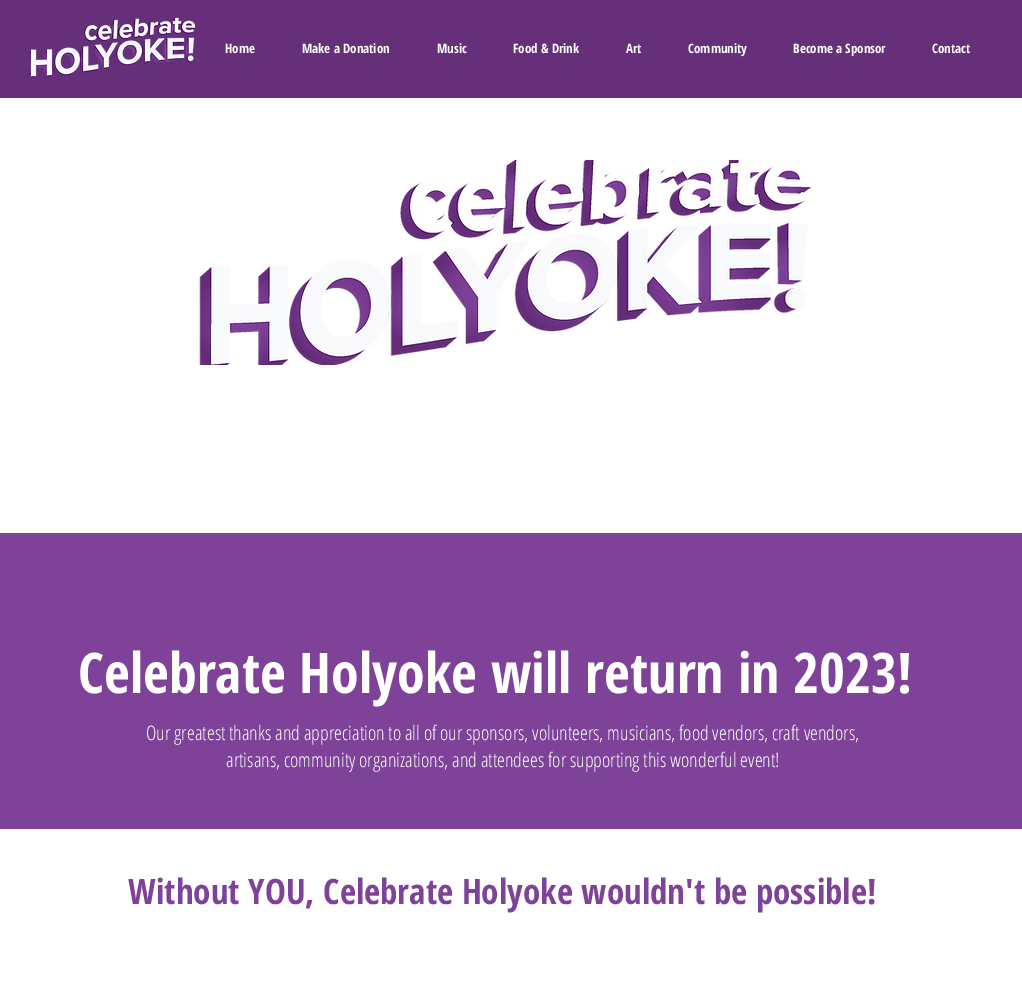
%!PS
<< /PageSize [1022 983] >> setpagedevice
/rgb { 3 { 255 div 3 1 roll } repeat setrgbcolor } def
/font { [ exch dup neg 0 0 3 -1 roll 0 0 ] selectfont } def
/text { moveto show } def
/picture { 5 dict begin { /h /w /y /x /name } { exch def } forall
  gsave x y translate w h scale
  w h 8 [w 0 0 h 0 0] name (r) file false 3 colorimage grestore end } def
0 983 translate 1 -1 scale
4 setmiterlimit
255 255 255 rgb
0 0 1022 983 rectfill
101 47 122 rgb
0 0 1022 98 rectfill
(img_01.rgb) 28 17 167 61 picture
(img_02.rgb) 199 160 613 205 picture
126 67 153 rgb
0 533 1022 296 rectfill
/OpenSansCondensed-Bold 13 font
255 255 255 rgb
(Home) 225 53 text
(Make a Donation) 302 53 text
(Music) 437 53 text
(Food & Drink) 513 53 text
(Art) 626 53 text
(Community) 688 53 text
(Become a Sponsor) 793 53 text
(Contact) 932 53 text
/OpenSansCondensed-Bold 56 font
(Celebrate Holyoke will return in 2023!) 78 693 text
/OpenSansCondensed-Light 20 font
(Our greatest thanks and appreciation to all of our sponsors, volunteers, musicians, food vendors, craft vendors,) 146 740 text
(artisans, community organizations, and attendees for supporting this wonderful event!) 226 767 text
/OpenSansCondensed-Bold 35 font
126 67 153 rgb
(Without YOU, Celebrate Holyoke wouldn't be possible!) 128 904 text
showpage
